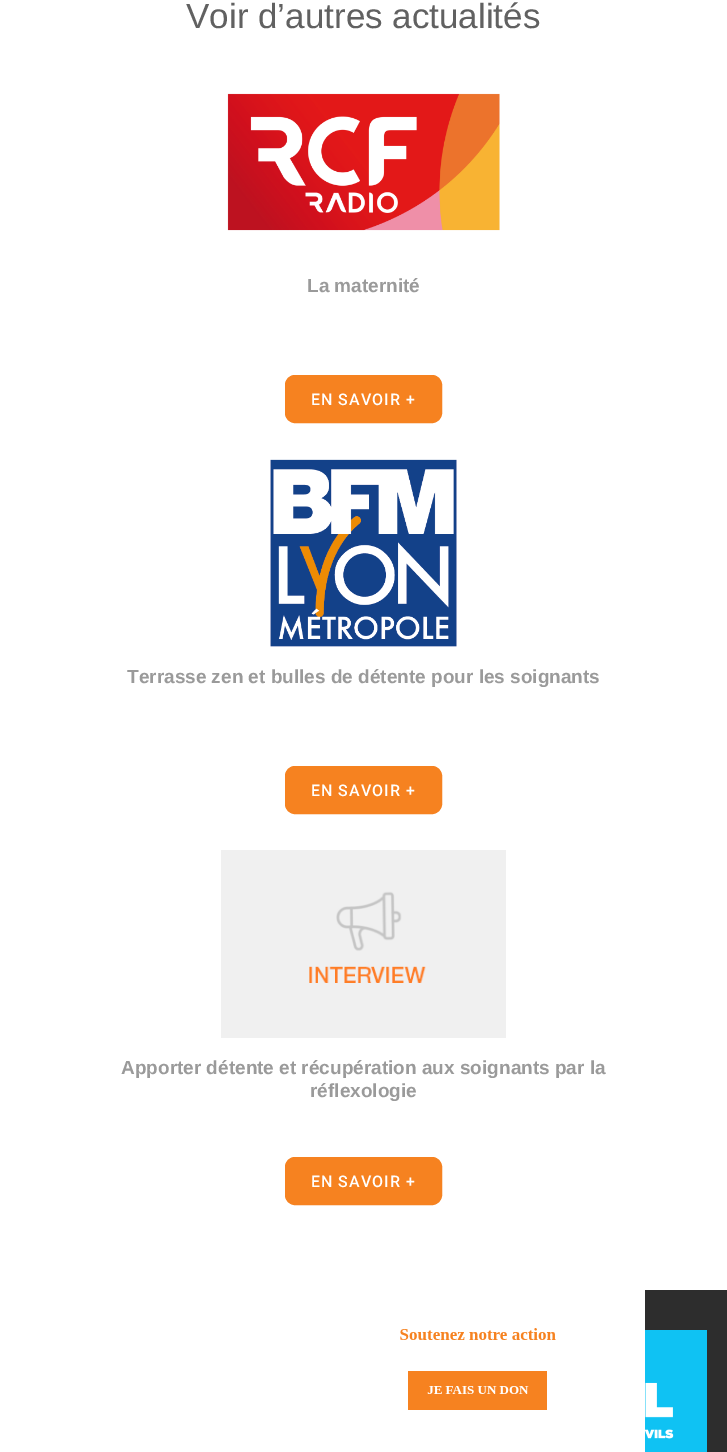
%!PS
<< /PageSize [727 1452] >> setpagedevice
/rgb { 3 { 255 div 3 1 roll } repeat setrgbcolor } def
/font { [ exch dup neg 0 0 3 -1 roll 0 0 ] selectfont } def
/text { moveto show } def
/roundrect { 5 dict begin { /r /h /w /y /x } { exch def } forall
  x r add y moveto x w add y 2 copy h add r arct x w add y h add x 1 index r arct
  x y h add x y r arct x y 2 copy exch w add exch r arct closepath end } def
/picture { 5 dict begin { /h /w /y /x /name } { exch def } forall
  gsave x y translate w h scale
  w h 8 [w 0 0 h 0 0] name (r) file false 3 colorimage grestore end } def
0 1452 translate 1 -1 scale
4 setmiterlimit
255 255 255 rgb
0 0 727 1452 rectfill
(img_01.rgb) 227 93 273 138 picture
246 130 32 rgb
285.5 375.5 156 47 9.5 roundrect gsave fill grestore
stroke
(img_02.rgb) 270 459 187 188 picture
285.5 766.5 156 47 9.5 roundrect gsave fill grestore
stroke
(img_03.rgb) 221 850 285 188 picture
285.5 1157.5 156 47 9.5 roundrect gsave fill grestore
stroke
(img_04.rgb) 0 1290 645 162 picture
45 45 45 rgb
645 1290 82 162 rectfill
(img_05.rgb) 645 1330 62 122 picture
/LiberationSans-Regular 35 font
97 97 97 rgb
(Voir d’autres actualités) 186 28 text
/LiberationSans-Bold 19 font
154 154 154 rgb
(La maternité) 307 292 text
/Roboto-Medium 16 font
255 255 255 rgb
311 405 moveto 1 0 (EN SAVOIR +) ashow
/LiberationSans-Bold 19 font
154 154 154 rgb
(Terrasse zen et bulles de détente pour les soignants) 127 683 text
/Roboto-Medium 16 font
255 255 255 rgb
311 796 moveto 1 0 (EN SAVOIR +) ashow
/LiberationSans-Bold 19 font
154 154 154 rgb
(Apporter détente et récupération aux soignants par la) 121 1074 text
(réflexologie) 310 1097 text
/Roboto-Medium 16 font
255 255 255 rgb
311 1187 moveto 1 0 (EN SAVOIR +) ashow
showpage
